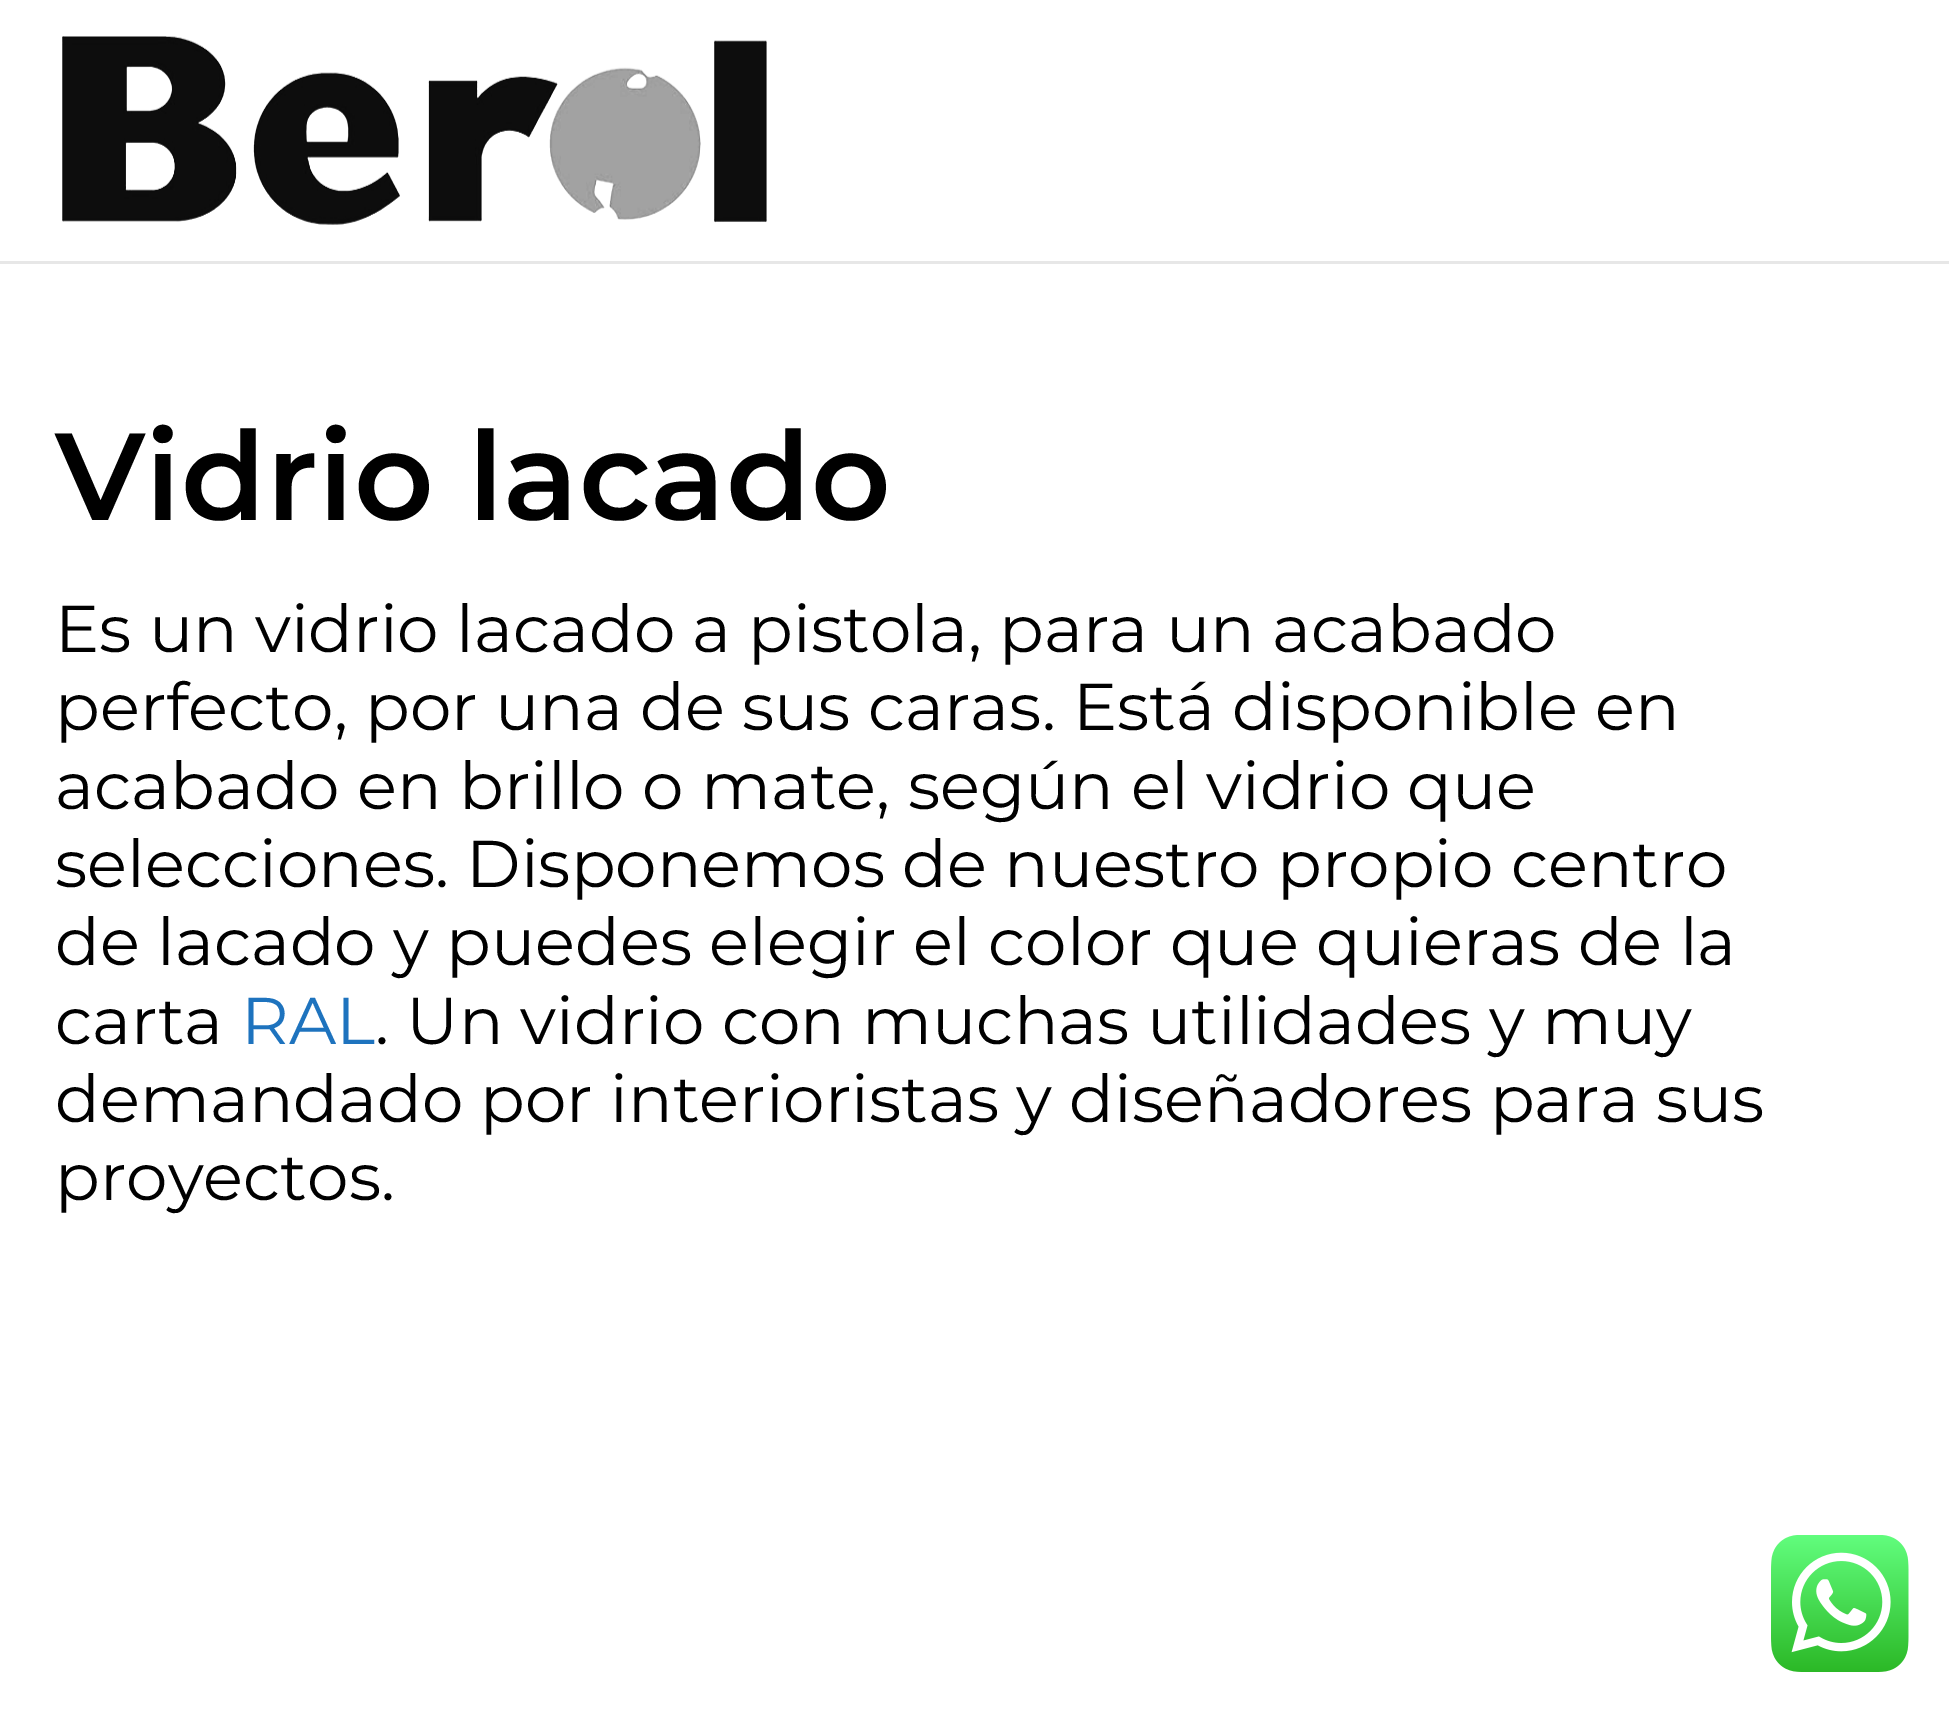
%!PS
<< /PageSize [1949 1713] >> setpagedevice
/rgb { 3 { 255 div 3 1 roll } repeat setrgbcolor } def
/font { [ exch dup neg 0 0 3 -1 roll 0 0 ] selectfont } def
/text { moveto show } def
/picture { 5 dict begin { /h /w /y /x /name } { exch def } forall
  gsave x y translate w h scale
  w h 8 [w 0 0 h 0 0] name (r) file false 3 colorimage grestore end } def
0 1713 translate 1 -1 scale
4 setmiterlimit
255 255 255 rgb
0 0 1949 1713 rectfill
231 231 231 rgb
0 261 1949 3 rectfill
(img_01.rgb) 62 36 705 189 picture
(img_02.rgb) 1771 1535 138 137 picture
/Montserrat-SemiBold 123.75 font
0 0 0 rgb
(Vidrio lacado) 55 520 text
/Montserrat-Regular 66 font
(Es un vidrio lacado a pistola, para un acabado) 55 652 text
(perfecto, por una de sus caras. Está disponible en) 55 730 text
(acabado en brillo o mate, según el vidrio que) 55 809 text
(selecciones. Disponemos de nuestro propio centro) 55 887 text
(de lacado y puedes elegir el color que quieras de la) 55 965 text
(carta) 55 1044 text
30 115 190 rgb
(RAL) 241 1044 text
0 0 0 rgb
(. Un vidrio con muchas utilidades y muy) 375 1044 text
(demandado por interioristas y diseñadores para sus) 55 1122 text
(proyectos.) 55 1200 text
showpage
